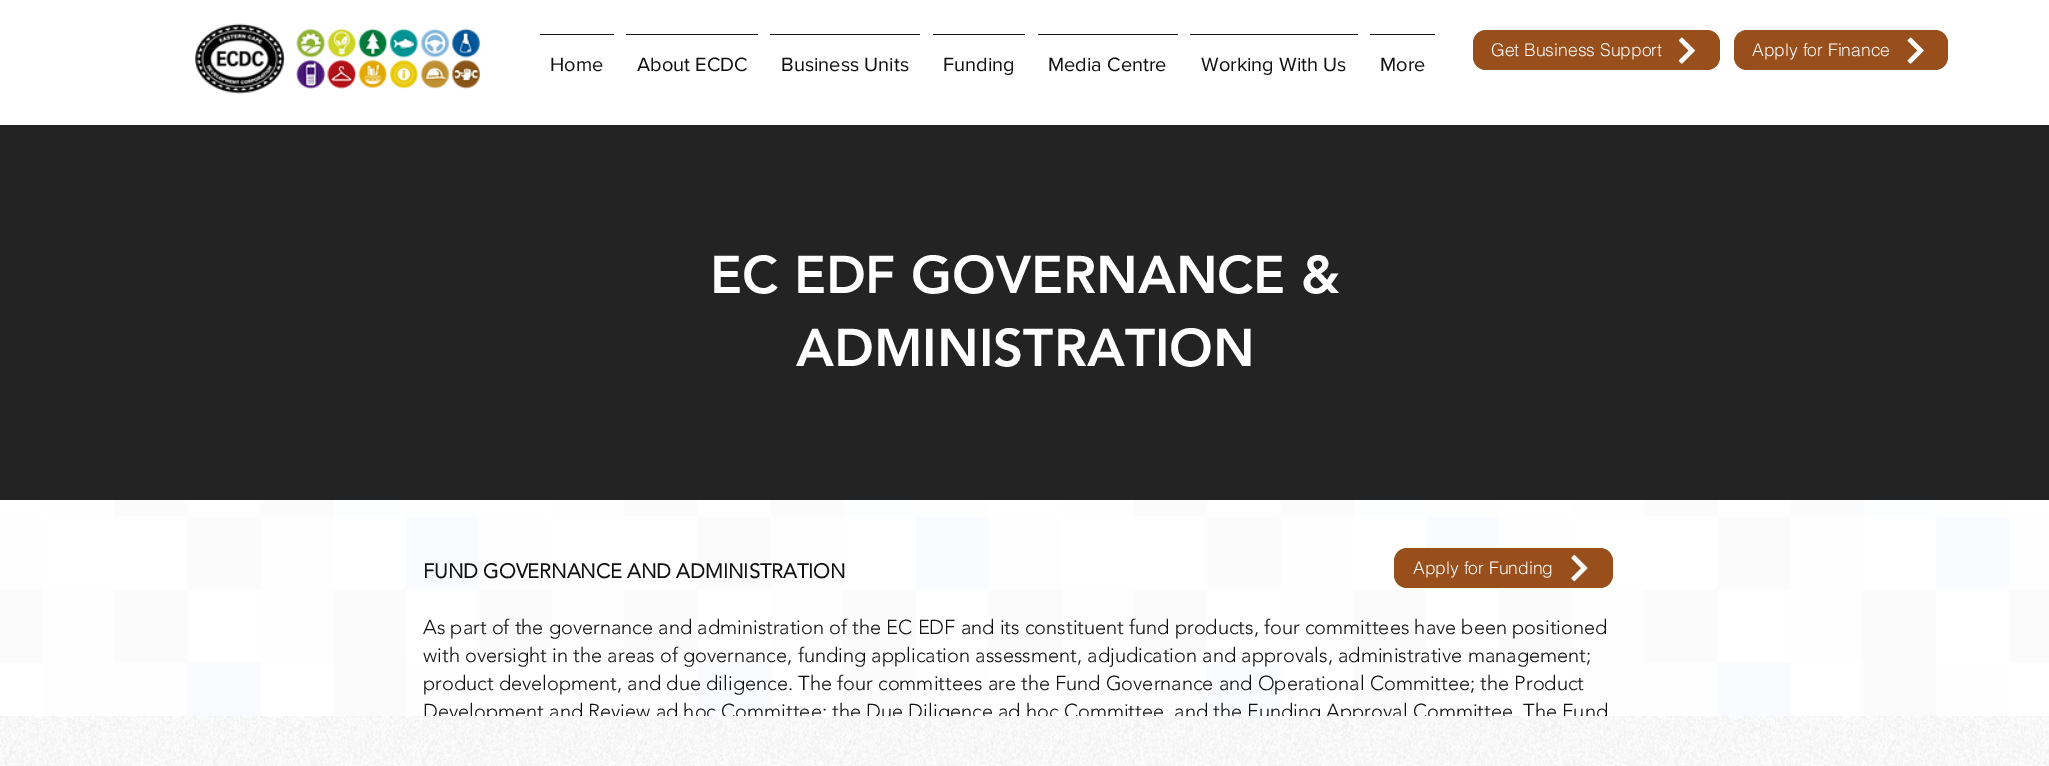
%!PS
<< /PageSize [2049 766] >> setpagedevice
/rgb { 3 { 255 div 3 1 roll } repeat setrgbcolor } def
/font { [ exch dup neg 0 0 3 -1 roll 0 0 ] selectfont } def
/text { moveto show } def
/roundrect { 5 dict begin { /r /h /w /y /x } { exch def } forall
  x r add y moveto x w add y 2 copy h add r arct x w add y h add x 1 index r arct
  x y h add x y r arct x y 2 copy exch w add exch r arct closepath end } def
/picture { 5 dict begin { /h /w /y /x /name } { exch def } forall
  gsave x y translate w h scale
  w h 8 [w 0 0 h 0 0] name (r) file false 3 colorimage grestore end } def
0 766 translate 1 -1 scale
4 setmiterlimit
255 255 255 rgb
0 0 2049 766 rectfill
(img_01.rgb) 195 23 285 71 picture
152 79 27 rgb
1473 30 247 40 13 roundrect fill
(img_02.rgb) 1678 37 17 27 picture
1734 30 214 40 13 roundrect fill
(img_03.rgb) 1907 37 17 27 picture
17 17 17 rgb
540 34 74 1 rectfill
626 34 132 1 rectfill
770 34 150 1 rectfill
933 34 92 1 rectfill
1038 34 140 1 rectfill
1190 34 168 1 rectfill
1370 34 65 1 rectfill
36 35 35 rgb
0 125 2049 375 rectfill
(img_06.rgb) 0 500 2049 216 picture
152 79 27 rgb
1394 548 219 40 13 roundrect fill
(img_04.rgb) 1571 555 17 27 picture
/helvetica-Light 17.5 font
255 255 255 rgb
(Get Business Support) 1491 56 text
(Apply for Finance) 1752 56 text
/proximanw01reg-Regular 20 font
17 17 17 rgb
(Home) 550 71 text
(About ECDC) 637 71 text
(Business Units) 781 71 text
(Funding) 943 71 text
(Media Centre) 1048 71 text
(Working With Us) 1201 71 text
(More) 1380 71 text
/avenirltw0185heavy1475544-Black 52.5 font
255 255 255 rgb
(EC EDF GOVERNANCE &) 710 293 text
(ADMINISTRATION) 796 366 text
/helvetica-Light 17.5 font
(Apply for Funding) 1413 574 text
/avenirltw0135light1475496-Bold 20 font
17 17 17 rgb
(FUND GOVERNANCE AND ADMINISTRATION) 423 578 text
/avenirltw0135light1475496-Light 20 font
(As part of the governance and administration of the EC EDF and its constituent fund products, four committees have been positioned) 423 634 text
(with oversight in the areas of governance, funding application assessment, adjudication and approvals, administrative management;) 423 662 text
(product development, and due diligence. The four committees are the Fund Governance and Operational Committee; the Product) 423 690 text
(Development and Review ad hoc Committee; the Due Diligence ad hoc Committee, and the Funding Approval Committee. The Fund) 423 718 text
255 255 255 rgb
424 716 1183 7 rectfill
(img_05.rgb) 0 716 2049 50 picture
showpage
